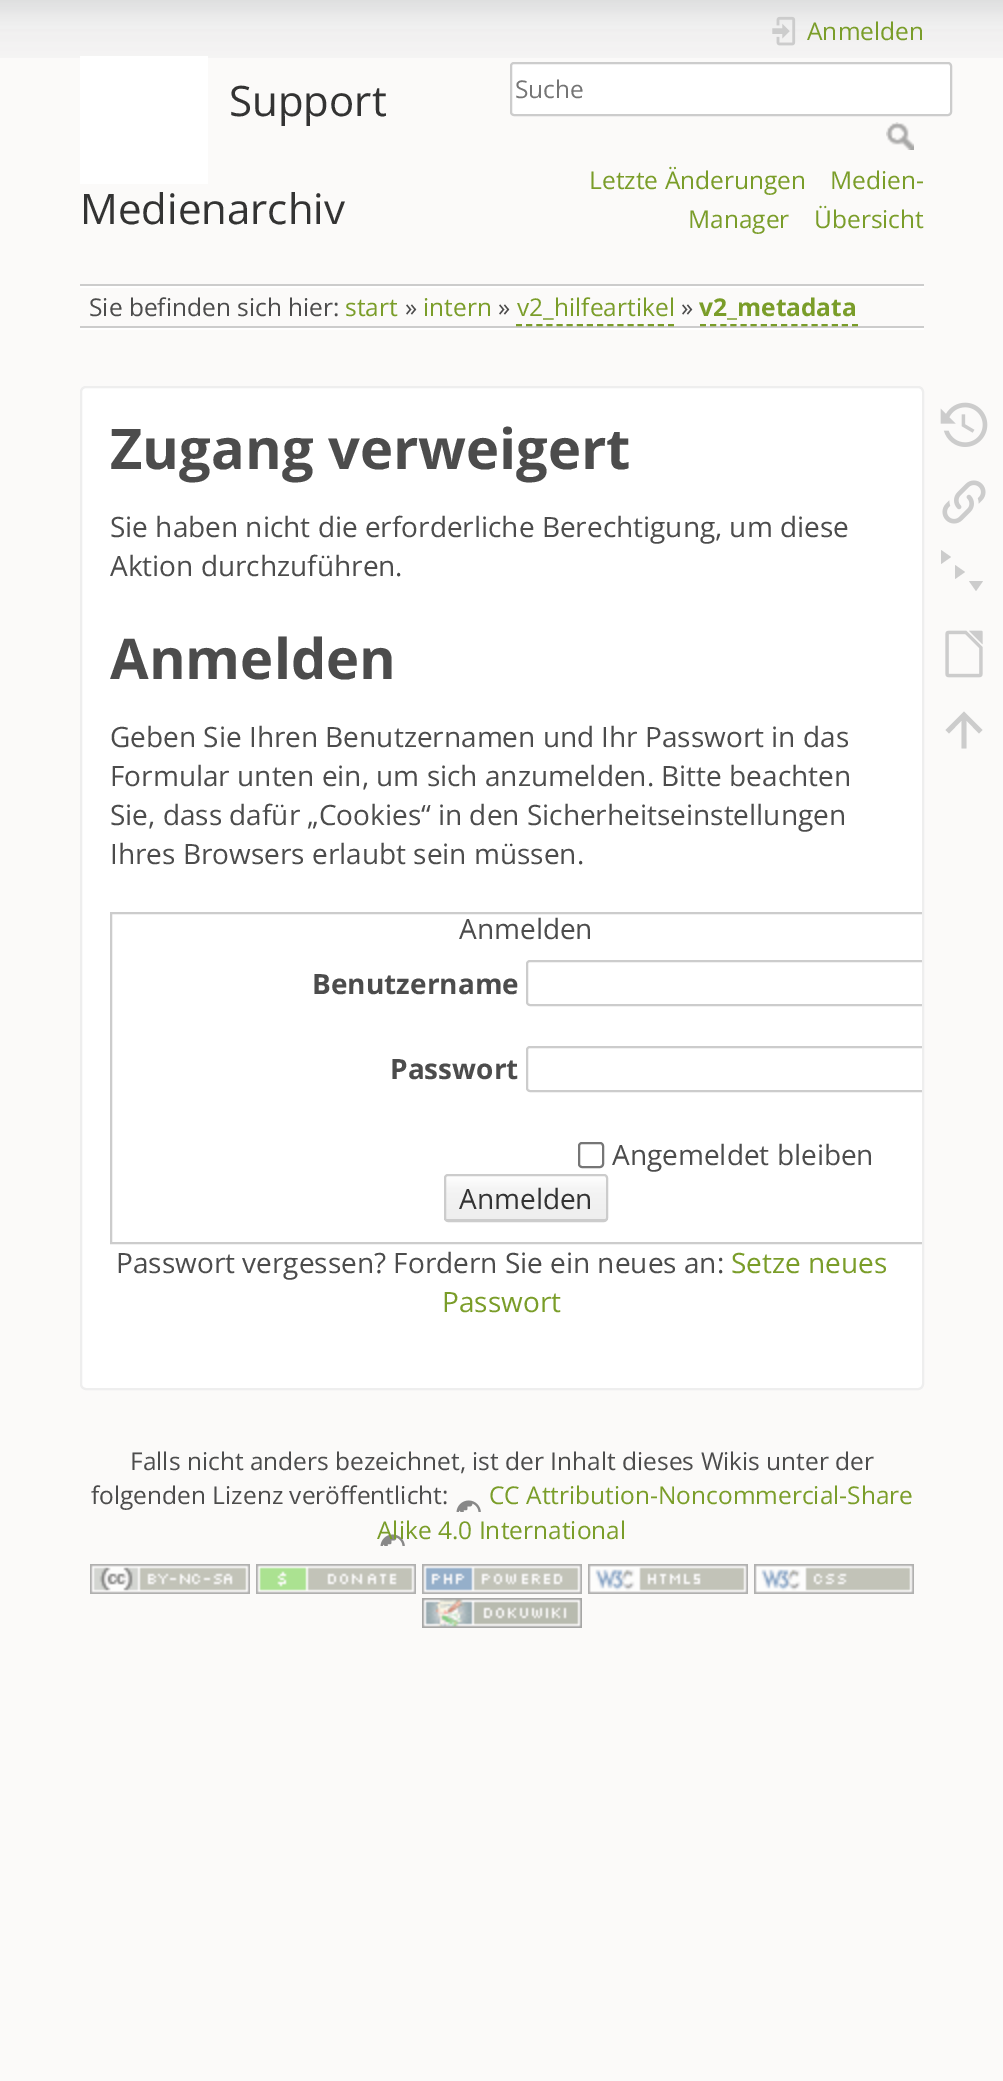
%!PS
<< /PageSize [1003 2081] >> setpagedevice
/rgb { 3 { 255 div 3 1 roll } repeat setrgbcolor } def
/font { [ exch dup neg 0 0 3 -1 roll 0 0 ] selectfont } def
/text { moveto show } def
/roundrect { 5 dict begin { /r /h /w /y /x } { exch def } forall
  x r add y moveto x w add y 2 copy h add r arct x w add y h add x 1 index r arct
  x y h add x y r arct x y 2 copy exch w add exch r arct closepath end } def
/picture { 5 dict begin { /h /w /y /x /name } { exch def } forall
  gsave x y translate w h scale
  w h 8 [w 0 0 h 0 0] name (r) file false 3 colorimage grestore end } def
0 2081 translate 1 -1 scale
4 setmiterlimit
251 250 249 rgb
0 0 1003 2081 rectfill
(img_01.rgb) 0 0 1003 58 picture
255 255 255 rgb
80 56 128 128 rectfill
(img_02.rgb) 772 16 24 30 picture
511 63 440 52 3 roundrect gsave fill grestore
204 204 204 rgb
2 setlinewidth
stroke
(img_03.rgb) 886 122 28 28 picture
80 284 844 2 rectfill
255 255 255 rgb
80 328 844 2 rectfill
80 286 844 2 rectfill
204 204 204 rgb
80 326 844 2 rectfill
122 157 41 rgb
[6 4.14] 0 setdash
516 325 moveto 158 0 rlineto stroke
700 325 moveto 158 0 rlineto stroke
255 255 255 rgb
81 387 842 1002 5 roundrect gsave fill grestore
238 238 238 rgb
[] 0 setdash
stroke
gsave
82 0 840 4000 rectclip
204 204 204 rgb
111 913 830 330 rectstroke
527 961 398 44 3 roundrect stroke
527 1047 398 44 3 roundrect stroke
grestore
118 118 118 rgb
579 1143 24 24 3 roundrect stroke
gsave
444 1174 164 48 4 roundrect clip newpath
gsave 444 1176 moveto 164 0 rlineto 0 44 rlineto -164 0 rlineto closepath clip newpath
<< /ShadingType 2 /ColorSpace /DeviceRGB /Coords [526 1176 526 1220] /Extend [true true] /Function << /FunctionType 3 /Domain [0 1] /Functions [<< /FunctionType 2 /Domain [0 1] /C0 [1 1 1] /C1 [0.957 0.957 0.957] /N 1 >> << /FunctionType 2 /Domain [0 1] /C0 [0.957 0.957 0.957] /C1 [0.933 0.933 0.933] /N 1 >> << /FunctionType 2 /Domain [0 1] /C0 [0.8 0.8 0.8] /C1 [0.8 0.8 0.8] /N 1 >>] /Bounds [0.3 0.99] /Encode [0 1 0 1 0 1] >> >> shfill grestore
grestore
204 204 204 rgb
445 1175 162 46 3 roundrect stroke
(img_04.rgb) 940 402 48 45 picture
(img_05.rgb) 942 480 44 44 picture
941 550 moveto 10 7 rlineto -10 7 rlineto closepath 955 565 moveto 10 7 rlineto -10 7 rlineto closepath 969 581 moveto 14 0 rlineto -7 10 rlineto closepath fill
(img_06.rgb) 945 630 38 48 picture
966.5 748.5 moveto -5 0 rlineto 0 -28 rlineto -12.5 13 rlineto -3.5 -3.5 rlineto 18.5 -18.5 rlineto 18.5 18.5 rlineto -3.5 3.5 rlineto -12.5 -13 rlineto closepath fill
(img_08.rgb) 90 1564 160 30 picture
(img_09.rgb) 256 1564 160 30 picture
(img_10.rgb) 422 1564 160 30 picture
(img_11.rgb) 588 1564 160 30 picture
(img_12.rgb) 754 1564 160 30 picture
(img_13.rgb) 422 1598 160 30 picture
/OpenSans-Regular 42 font
51 51 51 rgb
(Support) 229 116 text
(Medienarchiv) 80 224 text
/OpenSans-Regular 24.5 font
122 157 41 rgb
(Anmelden) 807 40 text
117 117 117 rgb
(Suche) 515 98 text
122 157 41 rgb
(Letzte Änderungen) 589 189 text
(Medien-) 830 189 text
(Manager) 688 228 text
(Übersicht) 814 228 text
76 76 76 rgb
(Sie befinden sich hier:) 89 316 text
122 157 41 rgb
(start) 345 316 text
76 76 76 rgb
(») 405 316 text
122 157 41 rgb
(intern) 423 316 text
76 76 76 rgb
(») 498 316 text
122 157 41 rgb
(v2_hilfeartikel) 517 316 text
76 76 76 rgb
(») 681 316 text
/OpenSans-Bold 24.5 font
122 157 41 rgb
(v2_metadata) 699 316 text
/OpenSans-Bold 56 font
76 76 76 rgb
(Zugang verweigert) 110 469 text
/OpenSans-Regular 28 font
(Sie haben nicht die erforderliche Berechtigung, um diese) 110 537 text
(Aktion durchzuführen.) 110 576 text
/OpenSans-Bold 56 font
(Anmelden) 110 679 text
/OpenSans-Regular 28 font
(Geben Sie Ihren Benutzernamen und Ihr Passwort in das) 110 747 text
(Formular unten ein, um sich anzumelden. Bitte beachten) 110 786 text
(Sie, dass dafür „Cookies“ in den Sicherheitseinstellungen) 110 825 text
(Ihres Browsers erlaubt sein müssen.) 110 864 text
(Anmelden) 459 939 text
/OpenSans-Bold 28 font
(Benutzername) 312 994 text
(Passwort) 390 1079 text
/OpenSans-Regular 28 font
(Angemeldet bleiben) 612 1165 text
51 51 51 rgb
(Anmelden) 459 1209 text
76 76 76 rgb
(Passwort vergessen? Fordern Sie ein neues an:) 116 1273 text
122 157 41 rgb
(Setze neues) 731 1273 text
(Passwort) 442 1312 text
/OpenSans-Regular 24.5 font
76 76 76 rgb
(Falls nicht anders bezeichnet, ist der Inhalt dieses Wikis unter der) 130 1470 text
(folgenden Lizenz veröffentlicht:) 91 1504 text
122 157 41 rgb
(CC Attribution-Noncommercial-Share) 489 1504 text
(img_07.rgb) 380 1500 101 46 picture
(Alike 4.0 International) 377 1539 text
showpage
